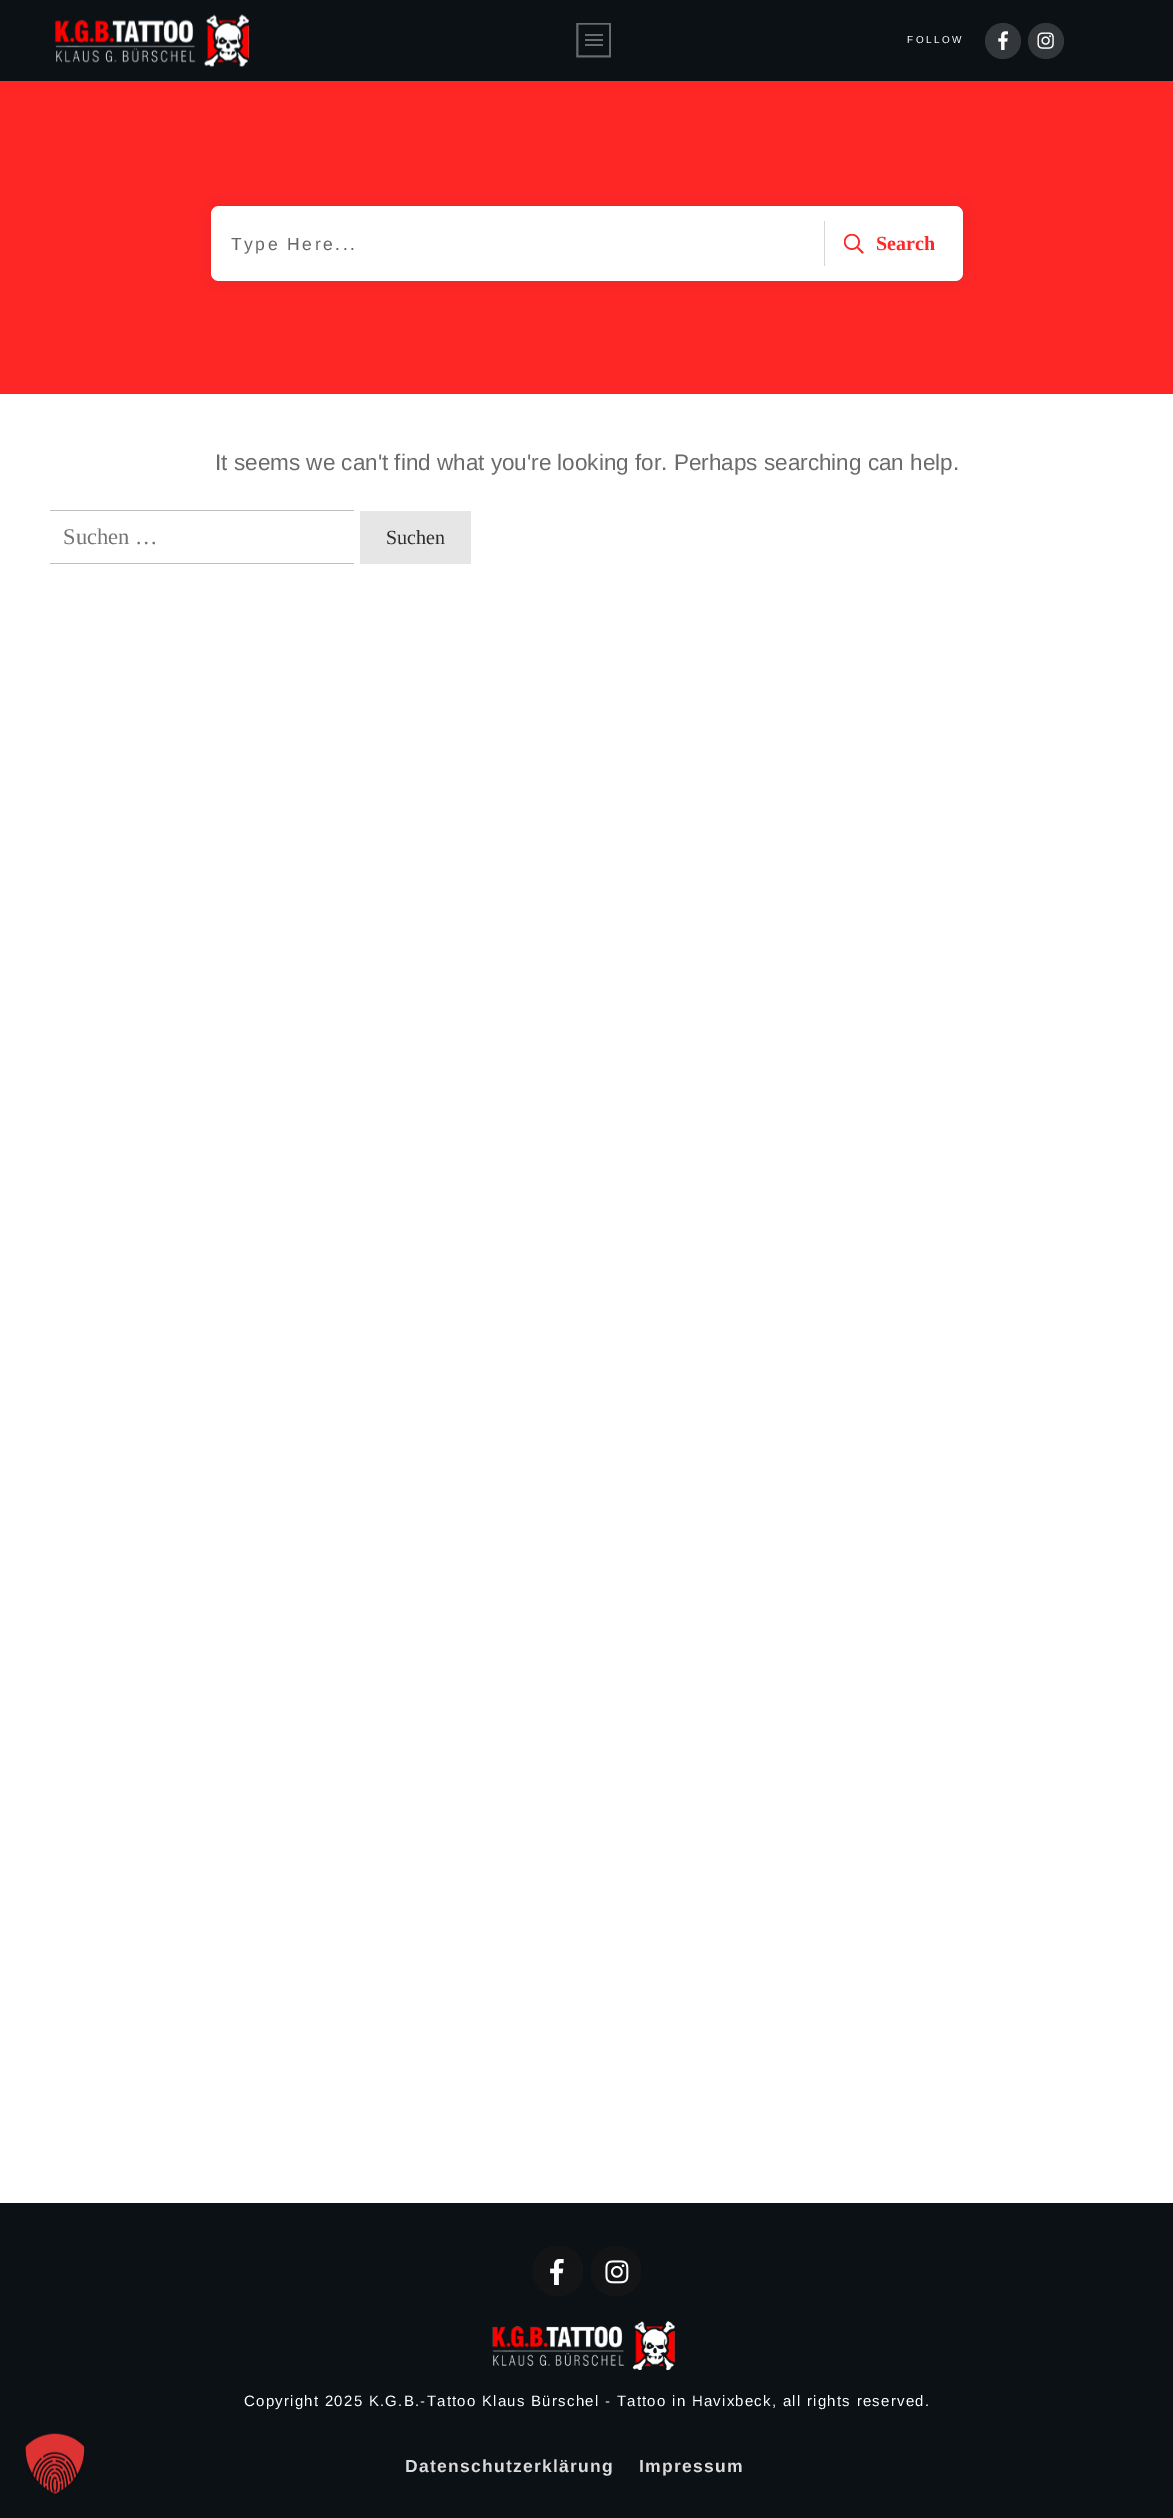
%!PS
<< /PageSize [1173 2518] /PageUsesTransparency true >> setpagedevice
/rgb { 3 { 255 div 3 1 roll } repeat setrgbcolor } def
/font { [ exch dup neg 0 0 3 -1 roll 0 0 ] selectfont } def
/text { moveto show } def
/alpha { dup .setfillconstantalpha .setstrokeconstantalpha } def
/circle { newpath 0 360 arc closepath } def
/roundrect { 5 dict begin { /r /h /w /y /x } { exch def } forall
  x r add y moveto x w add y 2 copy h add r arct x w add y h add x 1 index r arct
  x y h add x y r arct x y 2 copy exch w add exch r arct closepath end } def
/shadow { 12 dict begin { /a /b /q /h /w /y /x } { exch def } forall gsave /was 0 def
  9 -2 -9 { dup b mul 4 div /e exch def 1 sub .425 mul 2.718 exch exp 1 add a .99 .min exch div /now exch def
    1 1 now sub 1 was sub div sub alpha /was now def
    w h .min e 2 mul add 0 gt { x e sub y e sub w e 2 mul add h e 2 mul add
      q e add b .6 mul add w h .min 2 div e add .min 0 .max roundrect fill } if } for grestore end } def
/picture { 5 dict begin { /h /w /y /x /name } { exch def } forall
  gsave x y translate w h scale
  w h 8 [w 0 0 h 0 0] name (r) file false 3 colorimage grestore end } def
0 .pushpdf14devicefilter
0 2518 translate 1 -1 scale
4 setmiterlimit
255 255 255 rgb
0 0 1173 2518 rectfill
12 17 21 rgb
0 2203 1173 315 rectfill
(img_01.rgb) 25 2433 60 61 picture
0 0 1173 81 rectfill
(img_02.rgb) 55 14 194 53 picture
(img_03.rgb) 576 23 35 35 picture
51 55 58 rgb
1003 41 18 circle fill
(img_04.rgb) 998 31 10 19 picture
1046 41 18 circle fill
(img_05.rgb) 1037 32 17 17 picture
255 38 38 rgb
0 81 1173 313 rectfill
0 0 0 rgb
211 206 752 75 8 7 0.08 shadow
255 255 255 rgb
211 206 752 75 8 roundrect fill
214 214 214 rgb
824 221 1 45 rectfill
(img_06.rgb) 844 234 20 20 picture
191 191 191 rgb
50 510 304 1 rectfill
50 563 304 1 rectfill
230 230 230 rgb
360 511 111 53 rectfill
gsave 558 2271 25 circle clip newpath
<< /ShadingType 2 /ColorSpace /DeviceRGB /Coords [533 2246 583 2296] /Extend [true true] /Function << /FunctionType 3 /Domain [0 1] /Functions [<< /FunctionType 2 /Domain [0 1] /C0 [0.071 0.078 0.086] /C1 [0.071 0.078 0.086] /N 1 >> << /FunctionType 2 /Domain [0 1] /C0 [0.078 0.082 0.086] /C1 [0.078 0.082 0.086] /N 1 >>] /Bounds [0.5] /Encode [0 1 0 1] >> >> shfill grestore
(img_07.rgb) 550 2259 14 26 picture
gsave 616 2271 25 circle clip newpath
<< /ShadingType 2 /ColorSpace /DeviceRGB /Coords [591 2246 641 2296] /Extend [true true] /Function << /FunctionType 3 /Domain [0 1] /Functions [<< /FunctionType 2 /Domain [0 1] /C0 [0.071 0.078 0.086] /C1 [0.071 0.078 0.086] /N 1 >> << /FunctionType 2 /Domain [0 1] /C0 [0.078 0.082 0.086] /C1 [0.078 0.082 0.086] /N 1 >>] /Bounds [0.5] /Encode [0 1 0 1] >> >> shfill grestore
(img_08.rgb) 605 2260 24 24 picture
(img_09.rgb) 492 2321 183 49 picture
/LiberationSans-Regular 10 font
255 255 255 rgb
907 43 moveto 2.5 0 (FOLLOW) ashow
/LiberationSans-Regular 17.5 font
102 102 102 rgb
231 250 moveto 2.5 0 (Type Here...) ashow
/LiberationSerif-Bold 20 font
255 38 38 rgb
(Search) 876 250 text
/LiberationSans-Regular 22.5 font
106 107 108 rgb
(It seems we can't find what you're looking for. Perhaps searching can help.) 215 470 text
/LiberationSerif-Regular 22.5 font
117 117 117 rgb
(Suchen …) 63 544 text
/LiberationSerif-Regular 20 font
46 46 46 rgb
(Suchen) 386 544 text
/LiberationSans-Regular 15 font
255 255 255 rgb
244 2406 moveto 1.25 0 (Copyright 2025 K.G.B.-Tattoo Klaus Bürschel - Tattoo in Havixbeck, all rights reserved.) ashow
/LiberationSans-Bold 17.5 font
219 219 220 rgb
405 2472 moveto 1.25 0 (Datenschutzerklärung) ashow
639 2472 moveto 1.25 0 (Impressum) ashow
.poppdf14devicefilter showpage
